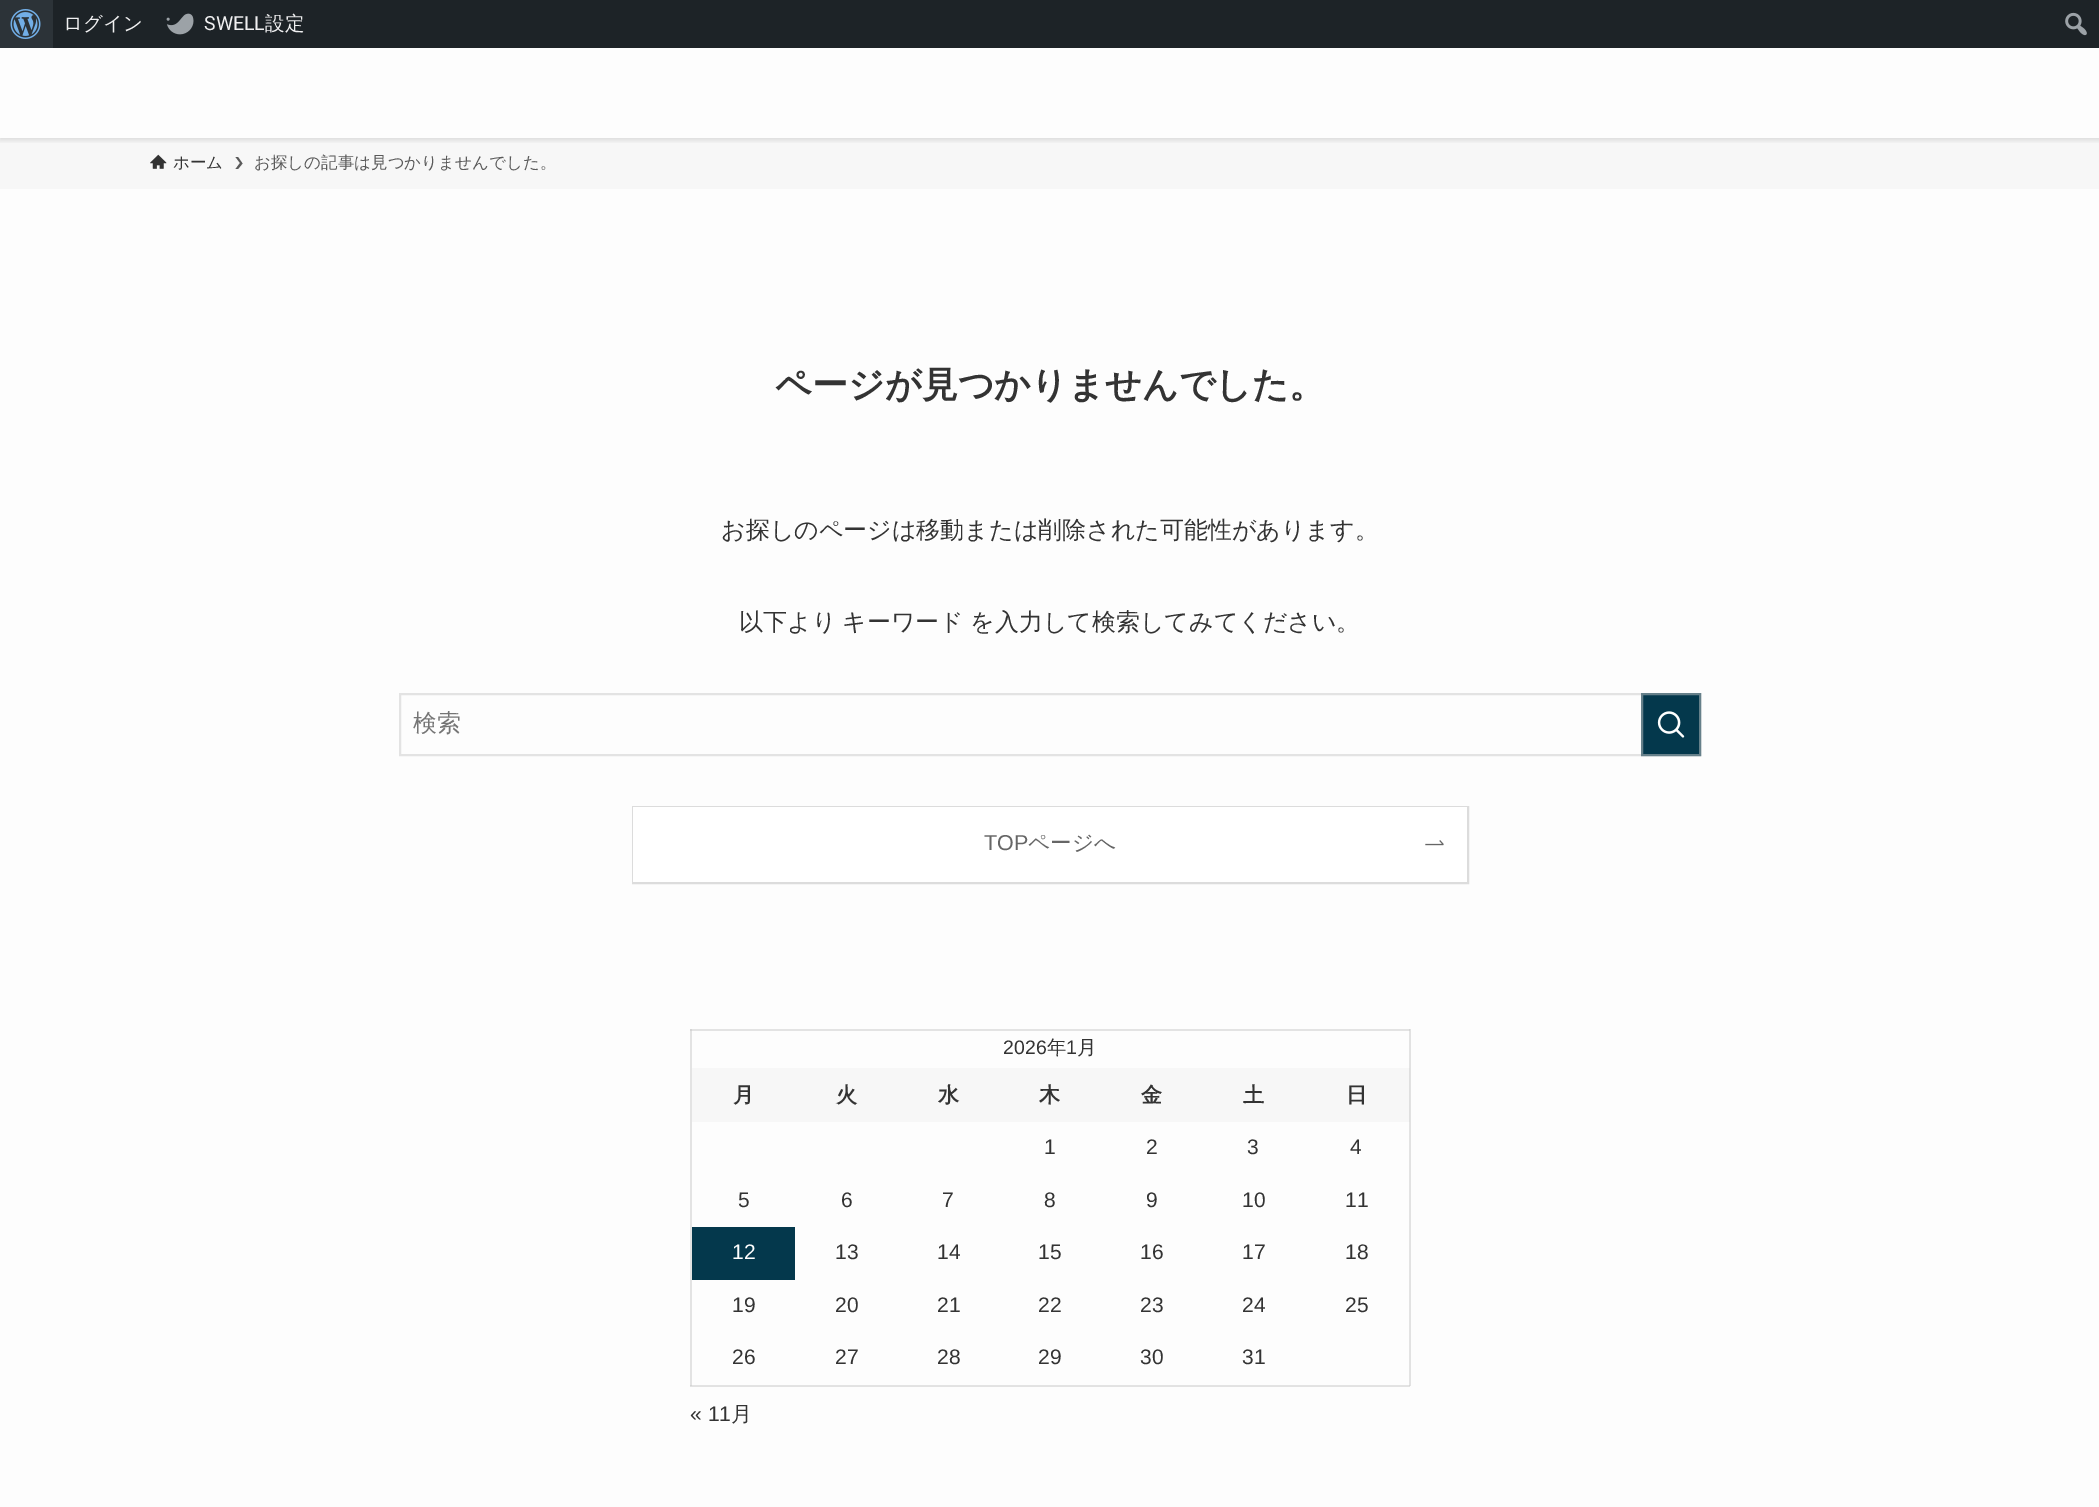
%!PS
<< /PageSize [2099 1507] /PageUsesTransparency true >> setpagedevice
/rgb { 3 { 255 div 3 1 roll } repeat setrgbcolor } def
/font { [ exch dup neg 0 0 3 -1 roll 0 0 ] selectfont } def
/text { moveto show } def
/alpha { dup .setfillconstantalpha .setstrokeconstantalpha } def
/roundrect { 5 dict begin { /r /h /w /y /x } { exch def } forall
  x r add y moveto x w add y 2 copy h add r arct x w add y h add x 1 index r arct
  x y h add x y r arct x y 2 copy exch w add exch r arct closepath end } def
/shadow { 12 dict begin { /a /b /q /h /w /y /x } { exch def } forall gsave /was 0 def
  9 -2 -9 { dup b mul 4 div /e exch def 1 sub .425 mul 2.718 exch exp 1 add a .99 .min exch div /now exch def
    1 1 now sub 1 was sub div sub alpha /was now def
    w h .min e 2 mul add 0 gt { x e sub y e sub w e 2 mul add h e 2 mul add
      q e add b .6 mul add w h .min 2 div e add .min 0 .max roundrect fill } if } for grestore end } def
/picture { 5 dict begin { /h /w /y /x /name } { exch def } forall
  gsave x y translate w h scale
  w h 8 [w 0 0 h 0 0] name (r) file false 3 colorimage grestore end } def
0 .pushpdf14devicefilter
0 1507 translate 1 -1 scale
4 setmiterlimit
253 253 253 rgb
0 0 2099 1507 rectfill
226 226 226 rgb
690 1386 720 1 rectfill
1410 1029 1 357 rectfill
247 247 247 rgb
0 138 2099 51 rectfill
gsave
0 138 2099 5 rectclip
0 0 0 rgb
0 -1 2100 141 0 3 0.12 shadow
grestore
29 35 39 rgb
53 0 2046 48 rectfill
44 51 56 rgb
0 0 53 48 rectfill
(img_01.rgb) 10 9 31 30 picture
(img_02.rgb) 166 13 28 22 picture
(img_03.rgb) 2065 12 22 24 picture
(img_04.rgb) 150 154 17 15 picture
90 90 90 rgb
238 157 moveto -2.5 0 rlineto 4.5 6 rlineto -4.5 6 rlineto 2.5 0 rlineto 4.5 -5.5 rlineto closepath fill
227 227 227 rgb
2 setlinewidth
400 694 1300 61 rectstroke
4 56 76 rgb
1642 694 moveto 58 0 rlineto 0 61 rlineto -58 0 rlineto closepath gsave fill grestore
102 128 138 rgb
stroke
(img_05.rgb) 1657 711 28 27 picture
220 220 220 rgb
633 807 835 76 rectstroke
255 255 255 rgb
633 807 834 75 rectfill
(img_06.rgb) 1425 840 19 6 picture
227 227 227 rgb
690 1029 2 357 rectfill
690 1385 720 1 rectfill
213 213 213 rgb
690 1385 2 1 rectfill
227 227 227 rgb
1409 1029 1 357 rectfill
213 213 213 rgb
1409 1385 1 1 rectfill
227 227 227 rgb
690 1029 720 2 rectfill
213 213 213 rgb
690 1029 2 2 rectfill
1409 1029 1 2 rectfill
247 247 247 rgb
692 1068 717 54 rectfill
223 223 223 rgb
1409 1068 1 54 rectfill
4 56 76 rgb
692 1227 103 53 rectfill
/WenQuanYiZenHei-Medium 19.5 font
240 240 241 rgb
(ログイン) 63 30 text
/Roboto-Regular 19.5 font
(SWELL) 204 30 text
/WenQuanYiZenHei-Medium 19.5 font
(設定) 265 30 text
/WenQuanYiZenHei-Medium 16.5 font
51 51 51 rgb
(ホーム) 173 168 text
90 90 90 rgb
(お探しの記事は見つかりませんでした。) 254 168 text
/WenQuanYiZenHei-Bold 36 font
51 51 51 rgb
(ページが見つかりませんでした。) 775 397 text
/WenQuanYiZenHei-Medium 24 font
(お探しのページは移動または削除された可能性があります。) 721 538 text
739 630 moveto -1 0 32 (以下より キーワード を入力して検索してみてください。) widthshow
117 117 117 rgb
(検索) 413 731 text
/LiberationSans-Regular 21.5 font
102 102 102 rgb
(TOP) 984 850 text
/WenQuanYiZenHei-Medium 21.5 font
(ページへ) 1028 850 text
/LiberationSans-Regular 19.5 font
51 51 51 rgb
(2026) 1003 1054 text
/WenQuanYiZenHei-Medium 19.5 font
(年) 1047 1054 text
/LiberationSans-Regular 19.5 font
(1) 1066 1054 text
/WenQuanYiZenHei-Medium 19.5 font
(月) 1077 1054 text
/WenQuanYiZenHei-Bold 21 font
(月) 733 1102 text
(火) 836 1102 text
(水) 938 1102 text
(木) 1039 1102 text
(金) 1141 1102 text
(土) 1243 1102 text
(日) 1346 1102 text
/LiberationSans-Regular 21 font
(1) 1044 1154 text
(2) 1146 1154 text
(3) 1247 1154 text
(4) 1350 1154 text
(5) 738 1207 text
(6) 841 1207 text
(7) 942 1207 text
(8) 1044 1207 text
(9) 1146 1207 text
(10) 1242 1207 text
(11) 1345 1207 text
255 255 255 rgb
(12) 732 1259 text
51 51 51 rgb
(13) 835 1259 text
(14) 937 1259 text
(15) 1038 1259 text
(16) 1140 1259 text
(17) 1242 1259 text
(18) 1345 1259 text
(19) 732 1312 text
(20) 835 1312 text
(21) 937 1312 text
(22) 1038 1312 text
(23) 1140 1312 text
(24) 1242 1312 text
(25) 1345 1312 text
(26) 732 1364 text
(27) 835 1364 text
(28) 937 1364 text
(29) 1038 1364 text
(30) 1140 1364 text
(31) 1242 1364 text
(« 11) 690 1421 text
/WenQuanYiZenHei-Medium 21 font
(月) 731 1421 text
.poppdf14devicefilter showpage
